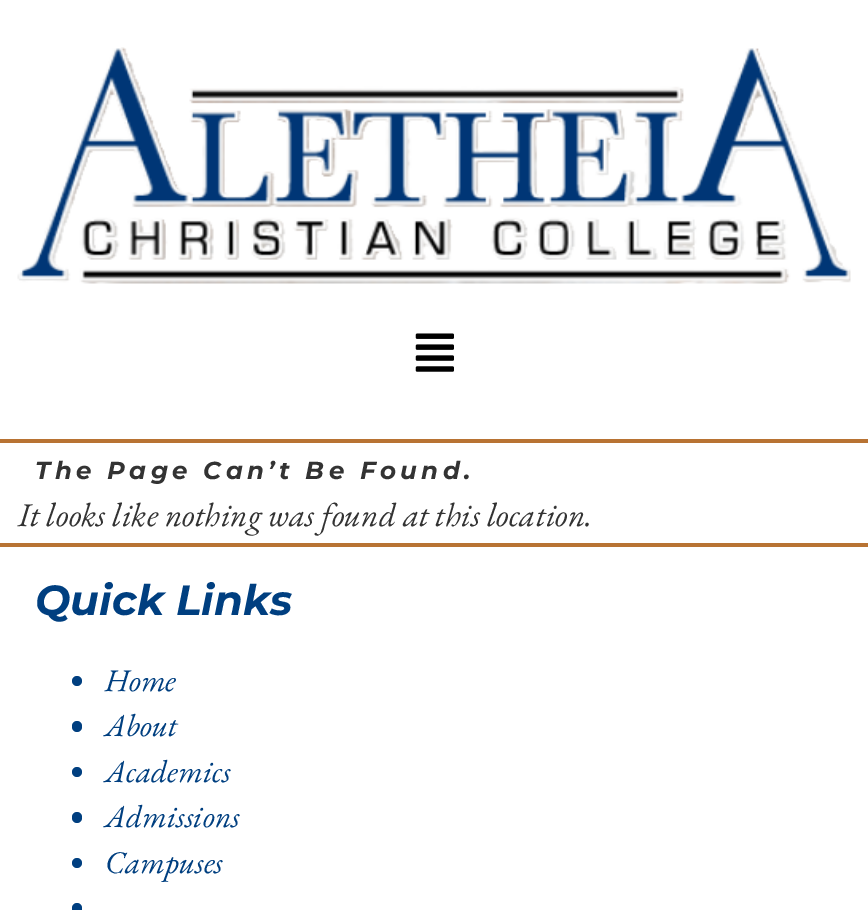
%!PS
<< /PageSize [868 910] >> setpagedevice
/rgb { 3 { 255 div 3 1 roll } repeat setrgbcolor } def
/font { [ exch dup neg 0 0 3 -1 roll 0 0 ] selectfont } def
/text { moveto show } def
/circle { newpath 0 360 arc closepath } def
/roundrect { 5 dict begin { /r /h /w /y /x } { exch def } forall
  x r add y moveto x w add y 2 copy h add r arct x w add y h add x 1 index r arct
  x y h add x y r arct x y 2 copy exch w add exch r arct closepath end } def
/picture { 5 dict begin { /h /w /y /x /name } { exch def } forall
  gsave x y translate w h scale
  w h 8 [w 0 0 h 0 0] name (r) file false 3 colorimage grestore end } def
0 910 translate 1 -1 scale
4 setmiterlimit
255 255 255 rgb
0 0 868 910 rectfill
184 115 51 rgb
0 439 868 4 rectfill
(img_01.rgb) 17 47 834 237 picture
(img_02.rgb) 415 333 39 39 picture
0 543 868 4 rectfill
0 63 128 rgb
77 681 5 circle fill
72 721 10 11 5 roundrect fill
77 772 5 circle fill
72 812 10 11 5 roundrect fill
77 863 5 circle fill
72 903 10 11 5 roundrect fill
/Montserrat-BoldItalic 24.5 font
51 51 51 rgb
35 479 moveto 4.4 0 (The Page Can’t Be Found.) ashow
/EBGaramond-Italic 33.25 font
(It looks like nothing was found at this location.) 18 526 text
/Montserrat-BoldItalic 42 font
0 63 128 rgb
(Quick Links) 35 615 text
/EBGaramond-Italic 31.5 font
(Home) 105 691 text
(About) 105 736 text
(Academics) 105 782 text
(Admissions) 105 827 text
(Campuses) 105 873 text
showpage
